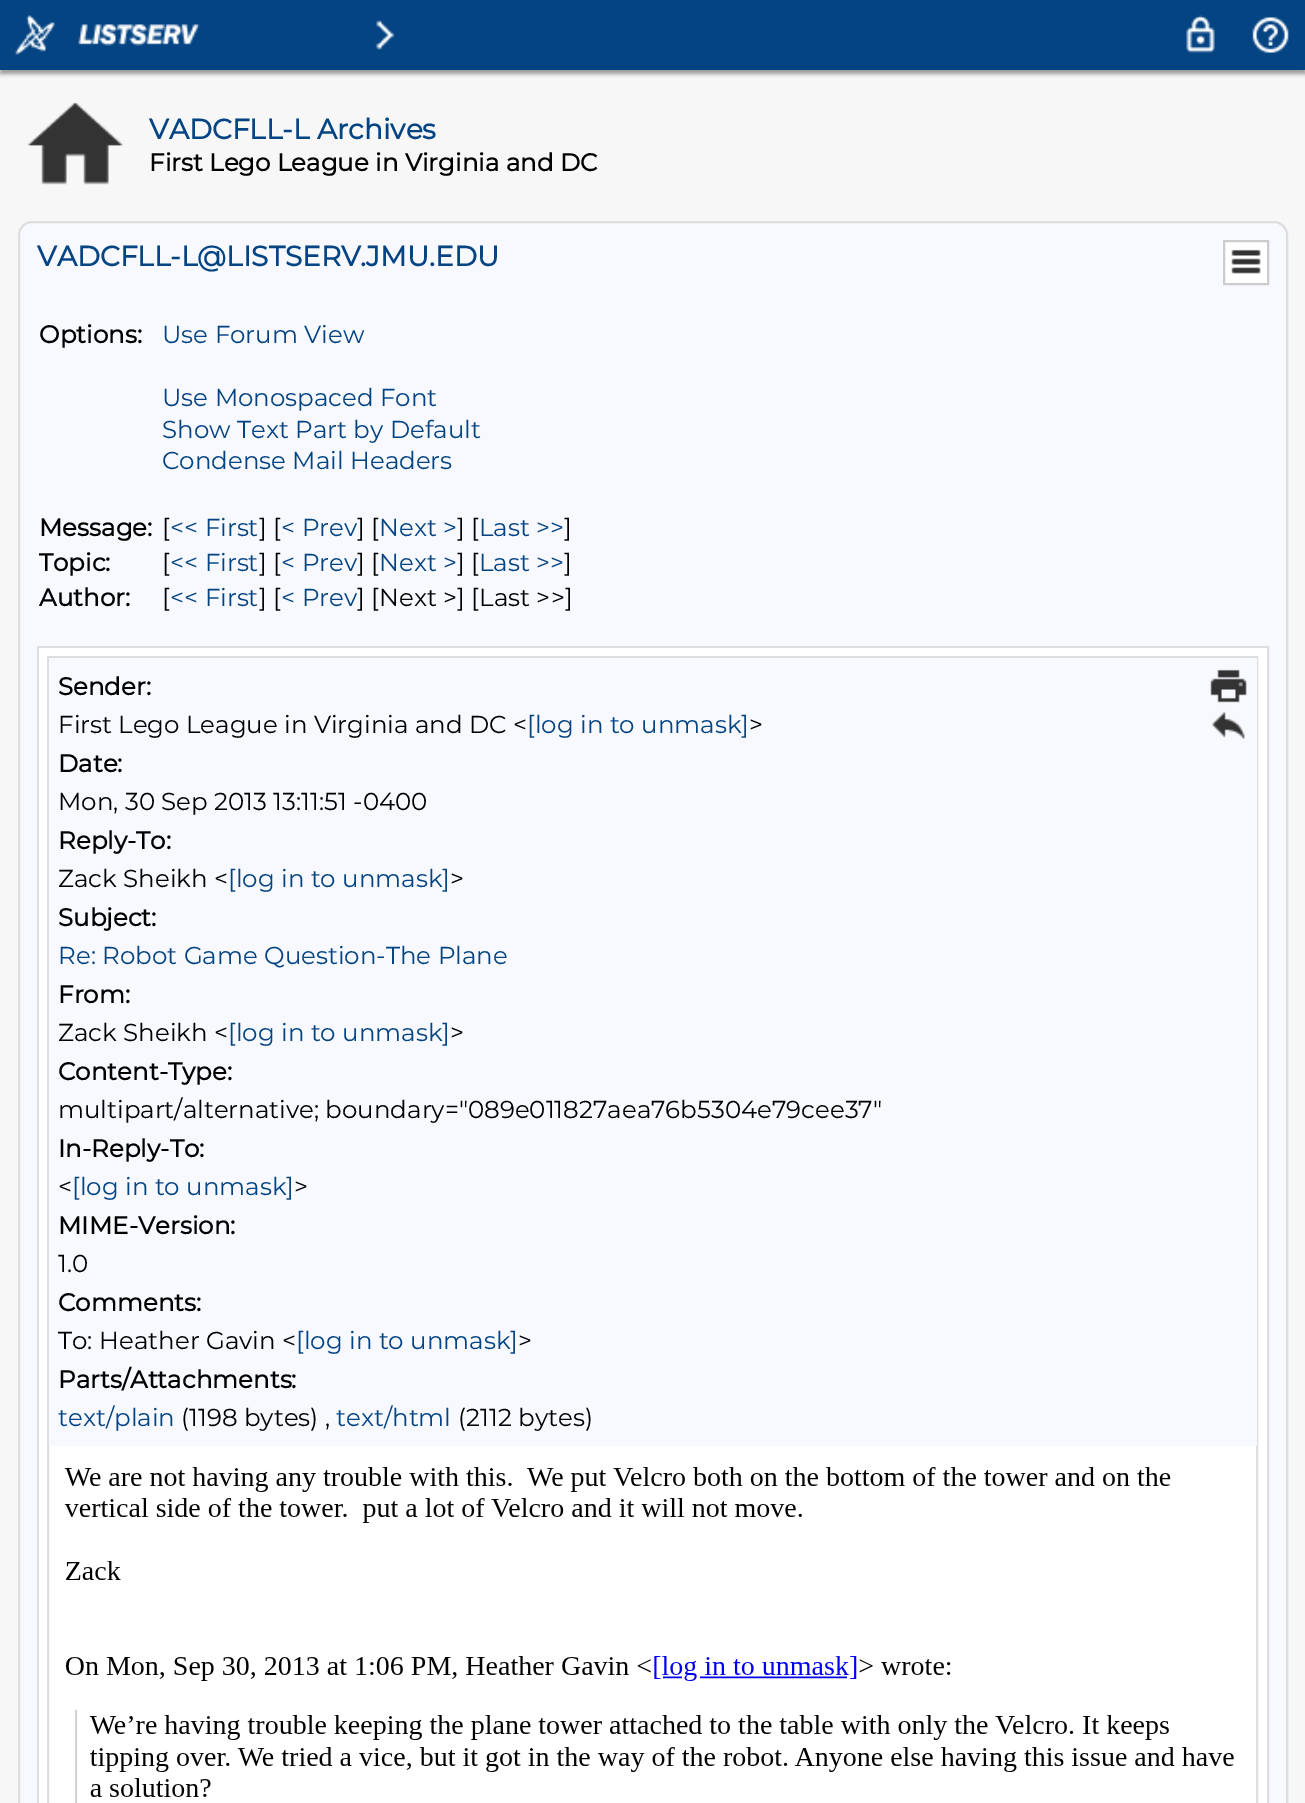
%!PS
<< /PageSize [1305 1803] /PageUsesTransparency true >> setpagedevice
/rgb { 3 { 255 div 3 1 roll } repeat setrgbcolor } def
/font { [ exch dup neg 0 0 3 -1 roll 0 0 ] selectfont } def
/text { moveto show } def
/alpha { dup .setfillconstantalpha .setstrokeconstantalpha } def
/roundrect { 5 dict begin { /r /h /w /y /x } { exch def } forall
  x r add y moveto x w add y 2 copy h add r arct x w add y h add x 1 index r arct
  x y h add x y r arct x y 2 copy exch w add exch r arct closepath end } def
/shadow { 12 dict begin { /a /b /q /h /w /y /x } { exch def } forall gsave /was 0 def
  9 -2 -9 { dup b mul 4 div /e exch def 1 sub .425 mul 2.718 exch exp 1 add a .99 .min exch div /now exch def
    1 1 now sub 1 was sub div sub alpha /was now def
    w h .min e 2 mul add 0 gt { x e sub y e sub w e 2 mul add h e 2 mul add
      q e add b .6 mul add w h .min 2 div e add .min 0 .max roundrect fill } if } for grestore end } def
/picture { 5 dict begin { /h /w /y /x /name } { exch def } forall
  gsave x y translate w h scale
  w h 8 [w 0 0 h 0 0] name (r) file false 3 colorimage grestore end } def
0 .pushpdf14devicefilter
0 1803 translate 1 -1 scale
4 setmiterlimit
247 247 247 rgb
0 0 1305 1803 rectfill
153 153 153 rgb
0 4 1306 70 0 2 1 shadow
5 68 131 rgb
0 0 1305 70 rectfill
(img_01.rgb) 15 15 40 40 picture
(img_02.rgb) 78 24 122 22 picture
(img_03.rgb) 375 20 20 30 picture
(img_04.rgb) 1186 15 29 38 picture
(img_05.rgb) 1252 17 37 36 picture
(img_06.rgb) 27 102 96 83 picture
247 249 254 rgb
19 222 1268 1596 13 roundrect gsave fill grestore
222 222 222 rgb
2 setlinewidth
stroke
255 255 255 rgb
1224 241 moveto 44 0 rlineto 0 43 rlineto -44 0 rlineto closepath gsave fill grestore
204 204 204 rgb
stroke
(img_07.rgb) 1231 249 30 25 picture
222 222 222 rgb
38 647 1230 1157 rectstroke
255 255 255 rgb
39 648 1228 1155 rectfill
222 222 222 rgb
48 657 1209 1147 rectstroke
247 249 254 rgb
49 658 1208 788 rectfill
(img_08.rgb) 1210 669 37 34 picture
(img_09.rgb) 1212 711 33 28 picture
(img_10.rgb) 64 1467 1170 336 picture
/Montserrat-Bold 28 font
5 68 131 rgb
(VADCFLL-L Archives) 149 139 text
/Montserrat-Bold 24.5 font
0 0 0 rgb
(First Lego League in Virginia and DC) 149 171 text
/Montserrat-Bold 28 font
5 68 131 rgb
(VADCFLL-L@LISTSERV.JMU.EDU) 37 266 text
/Montserrat-Bold 24.5 font
0 0 0 rgb
(Options:) 39 343 text
/Montserrat-Thin 24.5 font
5 68 131 rgb
(Use Forum View) 162 343 text
(Use Monospaced Font) 162 406 text
(Show Text Part by Default) 162 438 text
(Condense Mail Headers) 162 469 text
/Montserrat-Bold 24.5 font
0 0 0 rgb
(Message:) 39 536 text
/Montserrat-Thin 24.5 font
([) 162 536 text
5 68 131 rgb
(<< First) 170 536 text
0 0 0 rgb
(] [) 259 536 text
5 68 131 rgb
(< Prev) 281 536 text
0 0 0 rgb
(] [) 357 536 text
5 68 131 rgb
(Next >) 379 536 text
0 0 0 rgb
(] [) 457 536 text
5 68 131 rgb
(Last >>) 479 536 text
0 0 0 rgb
(]) 564 536 text
/Montserrat-Bold 24.5 font
(Topic:) 39 571 text
/Montserrat-Thin 24.5 font
([) 162 571 text
5 68 131 rgb
(<< First) 170 571 text
0 0 0 rgb
(] [) 259 571 text
5 68 131 rgb
(< Prev) 281 571 text
0 0 0 rgb
(] [) 357 571 text
5 68 131 rgb
(Next >) 379 571 text
0 0 0 rgb
(] [) 457 571 text
5 68 131 rgb
(Last >>) 479 571 text
0 0 0 rgb
(]) 564 571 text
/Montserrat-Bold 24.5 font
(Author:) 39 606 text
/Montserrat-Thin 24.5 font
([) 162 606 text
5 68 131 rgb
(<< First) 170 606 text
0 0 0 rgb
(] [) 259 606 text
5 68 131 rgb
(< Prev) 281 606 text
0 0 0 rgb
(] [Next >] [Last >>]) 357 606 text
/Montserrat-Bold 24.5 font
(Sender:) 58 695 text
/Montserrat-Thin 24.5 font
(First Lego League in Virginia and DC <) 58 733 text
5 68 131 rgb
([log in to unmask]) 527 733 text
0 0 0 rgb
(>) 749 733 text
/Montserrat-Bold 24.5 font
(Date:) 58 772 text
/Montserrat-Thin 24.5 font
(Mon, 30 Sep 2013 13:11:51 -0400) 58 810 text
/Montserrat-Bold 24.5 font
(Reply-To:) 58 849 text
/Montserrat-Thin 24.5 font
(Zack Sheikh <) 58 887 text
5 68 131 rgb
([log in to unmask]) 228 887 text
0 0 0 rgb
(>) 450 887 text
/Montserrat-Bold 24.5 font
(Subject:) 58 926 text
/Montserrat-Thin 24.5 font
5 68 131 rgb
(Re: Robot Game Question-The Plane) 58 964 text
/Montserrat-Bold 24.5 font
0 0 0 rgb
(From:) 58 1003 text
/Montserrat-Thin 24.5 font
(Zack Sheikh <) 58 1041 text
5 68 131 rgb
([log in to unmask]) 228 1041 text
0 0 0 rgb
(>) 450 1041 text
/Montserrat-Bold 24.5 font
(Content-Type:) 58 1080 text
/Montserrat-Thin 24.5 font
(multipart/alternative; boundary="089e011827aea76b5304e79cee37") 58 1118 text
/Montserrat-Bold 24.5 font
(In-Reply-To:) 58 1157 text
/Montserrat-Thin 24.5 font
(<) 58 1195 text
5 68 131 rgb
([log in to unmask]) 72 1195 text
0 0 0 rgb
(>) 294 1195 text
/Montserrat-Bold 24.5 font
(MIME-Version:) 58 1234 text
/Montserrat-Thin 24.5 font
(1.0) 58 1272 text
/Montserrat-Bold 24.5 font
(Comments:) 58 1311 text
/Montserrat-Thin 24.5 font
(To: Heather Gavin <) 58 1349 text
5 68 131 rgb
([log in to unmask]) 296 1349 text
0 0 0 rgb
(>) 518 1349 text
/Montserrat-Bold 24.5 font
(Parts/Attachments:) 58 1388 text
/Montserrat-Thin 24.5 font
5 68 131 rgb
(text/plain) 58 1426 text
0 0 0 rgb
(\(1198 bytes\) ,) 181 1426 text
5 68 131 rgb
(text/html) 336 1426 text
0 0 0 rgb
(\(2112 bytes\)) 458 1426 text
.poppdf14devicefilter showpage
